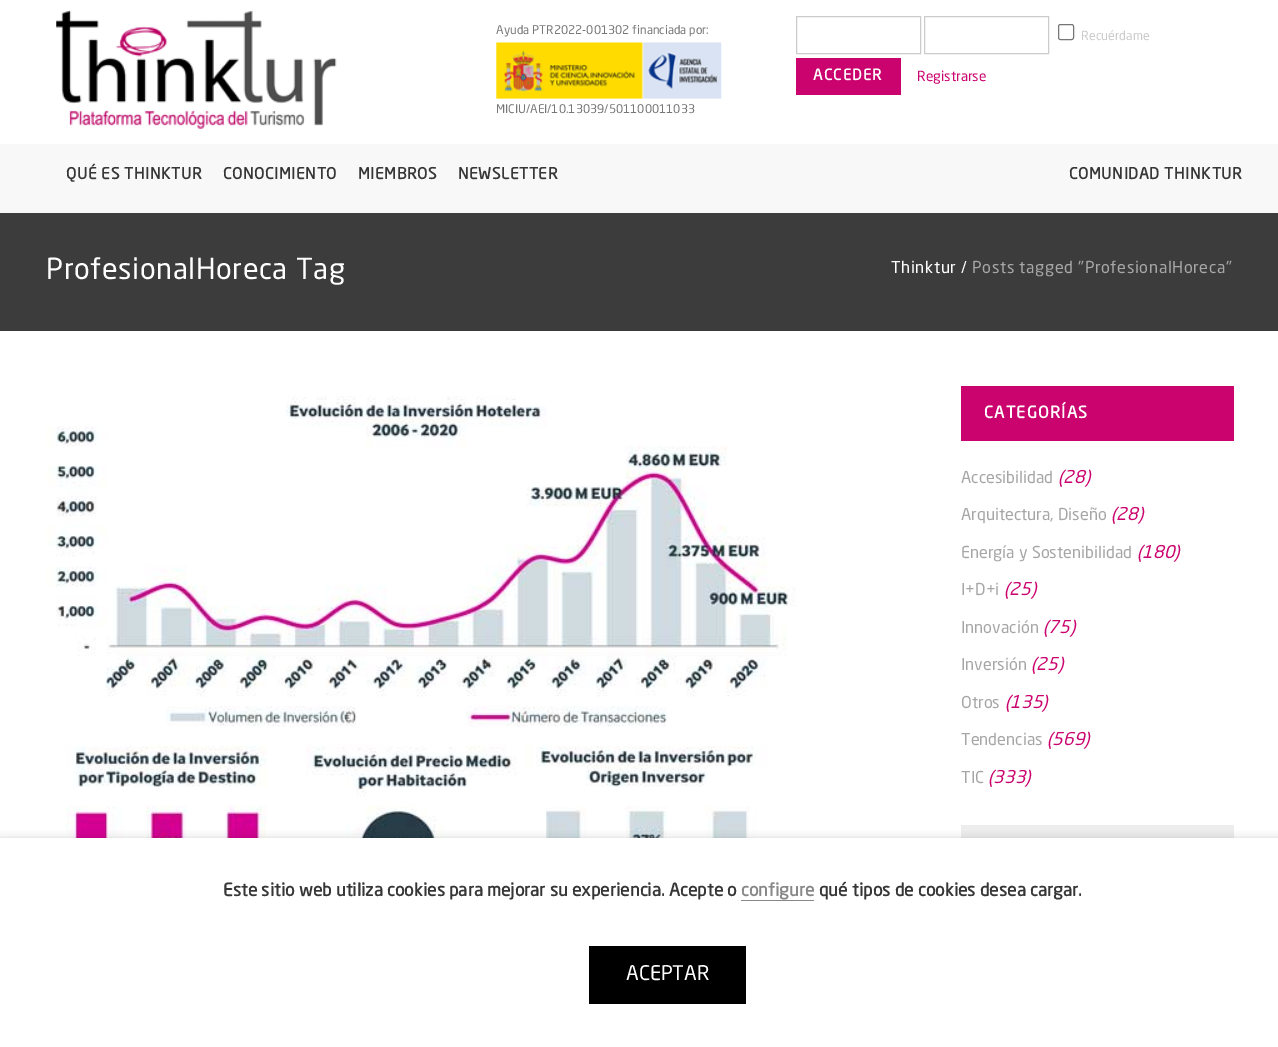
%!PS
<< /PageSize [1278 1047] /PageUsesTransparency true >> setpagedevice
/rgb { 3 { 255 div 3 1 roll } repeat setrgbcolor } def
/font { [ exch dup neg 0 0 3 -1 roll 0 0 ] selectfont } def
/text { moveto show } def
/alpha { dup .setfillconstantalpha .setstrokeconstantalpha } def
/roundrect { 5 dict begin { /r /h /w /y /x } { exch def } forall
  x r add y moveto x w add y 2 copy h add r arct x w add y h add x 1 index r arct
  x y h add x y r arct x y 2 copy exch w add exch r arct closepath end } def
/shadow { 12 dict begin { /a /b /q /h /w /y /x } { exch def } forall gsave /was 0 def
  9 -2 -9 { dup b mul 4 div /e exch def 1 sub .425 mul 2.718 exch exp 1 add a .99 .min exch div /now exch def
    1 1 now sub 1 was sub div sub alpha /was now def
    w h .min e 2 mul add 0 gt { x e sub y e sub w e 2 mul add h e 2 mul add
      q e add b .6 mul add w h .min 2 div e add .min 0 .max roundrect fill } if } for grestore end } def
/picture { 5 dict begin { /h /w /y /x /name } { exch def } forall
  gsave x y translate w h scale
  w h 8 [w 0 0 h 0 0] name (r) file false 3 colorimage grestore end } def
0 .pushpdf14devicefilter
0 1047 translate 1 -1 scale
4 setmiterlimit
255 255 255 rgb
0 0 1278 1047 rectfill
(img_01.rgb) 496 42 226 57 picture
204 204 204 rgb
796.5 16.5 124 37 rectstroke
924.5 16.5 124 37 rectstroke
118 118 118 rgb
1058.5 24.5 15 15 2 roundrect stroke
202 3 110 rgb
796 58 105 37 rectfill
248 248 248 rgb
0 144 1278 69 rectfill
(img_02.rgb) 56 10 281 119 picture
60 60 60 rgb
0 213 1278 118 rectfill
(img_03.rgb) 47 396 749 442 picture
202 3 110 rgb
961 386 273 55 rectfill
237 237 237 rgb
961 825 273 13 rectfill
0 0 0 rgb
0 844 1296 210 0 6 0.5 shadow
255 255 255 rgb
0 838 1278 209 rectfill
137 136 136 rgb
741 900 73 1 rectfill
0 0 0 rgb
589 946 157 58 rectfill
/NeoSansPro-Regular 11.9 font
119 119 119 rgb
(Ayuda PTR2022-001302 financiada por:) 496 34 text
(MICIU/AEI/10.13039/501100011033) 496 113 text
/NeoSansPro-Regular 12.5 font
204 204 204 rgb
(Recuérdame) 1081 40 text
/NeoSansPro-Bold 15 font
255 255 255 rgb
813 80 moveto 1.25 0 (ACCEDER) ashow
/NeoSansPro-Regular 13.75 font
202 3 110 rgb
(Registrarse) 917 81 text
/NeoSansPro-Bold 15.6 font
55 55 55 rgb
66 179 moveto 0.6 0 (QUÉ ES THINKTUR) ashow
223 179 moveto 0.6 0 (CONOCIMIENTO) ashow
358 179 moveto 0.6 0 (MIEMBROS) ashow
458 179 moveto 0.6 0 (NEWSLETTER) ashow
1069 179 moveto 0.6 0 (COMUNIDAD THINKTUR) ashow
/NeoSansPro-Regular 28.75 font
255 255 255 rgb
46 279 moveto 0.6 0 (ProfesionalHoreca Tag) ashow
/NeoSansPro-Regular 16.25 font
891 273 moveto 0.6 0 (Thinktur /) ashow
166 166 166 rgb
972 273 moveto 0.6 0 (Posts tagged "ProfesionalHoreca") ashow
/NeoSansPro-Bold 16.25 font
255 255 255 rgb
984 418 moveto 1.25 0 (CATEGORÍAS) ashow
/NeoSansPro-Regular 16.25 font
166 166 166 rgb
(Accesibilidad) 961 483 text
/NeoSansPro-Italic 17.5 font
202 3 110 rgb
(\(28\)) 1058 483 text
/NeoSansPro-Regular 16.25 font
166 166 166 rgb
(Arquitectura, Diseño) 961 520 text
/NeoSansPro-Italic 17.5 font
202 3 110 rgb
(\(28\)) 1111 520 text
/NeoSansPro-Regular 16.25 font
166 166 166 rgb
(Energía y Sostenibilidad) 961 558 text
/NeoSansPro-Italic 17.5 font
202 3 110 rgb
(\(180\)) 1137 558 text
/NeoSansPro-Regular 16.25 font
166 166 166 rgb
(I+D+i) 961 595 text
/NeoSansPro-Italic 17.5 font
202 3 110 rgb
(\(25\)) 1004 595 text
/NeoSansPro-Regular 16.25 font
166 166 166 rgb
(Innovación) 961 633 text
/NeoSansPro-Italic 17.5 font
202 3 110 rgb
(\(75\)) 1043 633 text
/NeoSansPro-Regular 16.25 font
166 166 166 rgb
(Inversión) 961 670 text
/NeoSansPro-Italic 17.5 font
202 3 110 rgb
(\(25\)) 1031 670 text
/NeoSansPro-Regular 16.25 font
166 166 166 rgb
(Otros) 961 708 text
/NeoSansPro-Italic 17.5 font
202 3 110 rgb
(\(135\)) 1005 708 text
/NeoSansPro-Regular 16.25 font
166 166 166 rgb
(Tendencias) 961 745 text
/NeoSansPro-Italic 17.5 font
202 3 110 rgb
(\(569\)) 1047 745 text
/NeoSansPro-Regular 16.25 font
166 166 166 rgb
(TIC) 961 783 text
/NeoSansPro-Italic 17.5 font
202 3 110 rgb
(\(333\)) 988 783 text
/NeoSansPro-Bold 17.5 font
55 55 55 rgb
(Este sitio web utiliza cookies para mejorar su experiencia. Acepte o) 223 896 text
137 136 136 rgb
(configure) 741 896 text
55 55 55 rgb
(qué tipos de cookies desea cargar.) 819 896 text
/NeoSansPro-Regular 20 font
255 255 255 rgb
(ACEPTAR) 626 980 text
.poppdf14devicefilter showpage
